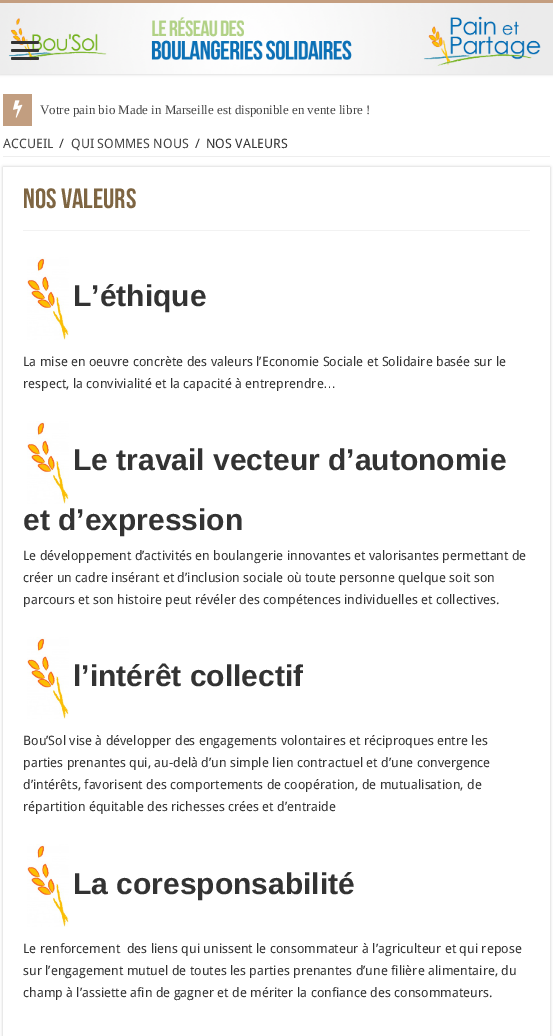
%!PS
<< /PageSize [553 1036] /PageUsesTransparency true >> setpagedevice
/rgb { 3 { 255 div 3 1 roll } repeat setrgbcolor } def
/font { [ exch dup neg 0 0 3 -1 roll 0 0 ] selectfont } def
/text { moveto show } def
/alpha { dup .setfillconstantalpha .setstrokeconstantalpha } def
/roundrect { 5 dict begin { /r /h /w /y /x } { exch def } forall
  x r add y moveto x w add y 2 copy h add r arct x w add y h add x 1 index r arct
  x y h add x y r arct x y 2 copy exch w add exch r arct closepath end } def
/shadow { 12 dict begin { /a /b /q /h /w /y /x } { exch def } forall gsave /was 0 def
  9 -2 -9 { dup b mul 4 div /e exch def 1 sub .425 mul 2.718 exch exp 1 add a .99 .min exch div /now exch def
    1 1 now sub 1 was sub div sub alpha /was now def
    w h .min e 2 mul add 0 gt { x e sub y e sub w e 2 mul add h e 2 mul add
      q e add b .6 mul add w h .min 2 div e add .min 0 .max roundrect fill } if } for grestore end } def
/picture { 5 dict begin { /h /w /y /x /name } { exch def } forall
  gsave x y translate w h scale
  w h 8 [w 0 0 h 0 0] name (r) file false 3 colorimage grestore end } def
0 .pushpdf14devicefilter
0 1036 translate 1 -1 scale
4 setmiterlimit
255 255 255 rgb
0 0 553 1036 rectfill
202 202 202 rgb
0 0 553 74 0 1.5 1 shadow
196 158 128 rgb
0 0 553 3 rectfill
(img_01.rgb) 0 3 553 71 picture
51 51 51 rgb
11 41 28 3 1.5 roundrect fill
11 49 28 3 1.5 roundrect fill
11 57 28 3 1.5 roundrect fill
194 158 128 rgb
3 94 29 32 rectfill
(img_02.rgb) 13 100 10 18 picture
238 238 238 rgb
3 156 547 1 rectfill
gsave
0 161 moveto 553 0 rlineto 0 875 rlineto -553 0 rlineto closepath 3 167 moveto 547 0 rlineto 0 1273 rlineto -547 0 rlineto closepath eoclip newpath
202 202 202 rgb
3 167 547 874 0 1.5 1 shadow
grestore
242 242 242 rgb
23 230 507 1 rectfill
(img_03.rgb) 27 257 42 83 picture
(img_03.rgb) 27 421 42 83 picture
(img_04.rgb) 27 637 42 82 picture
(img_03.rgb) 27 844 42 83 picture
/LiberationSerif-Regular 13 font
68 68 68 rgb
(Votre pain bio Made in Marseille est disponible en vente libre !) 40 114 text
/DroidSans-Regular 13 font
(ACCUEIL) 3 148 text
51 51 51 rgb
(/) 59 148 text
68 68 68 rgb
(QUI SOMMES NOUS) 71 148 text
51 51 51 rgb
(/) 195 148 text
(NOS VALEURS) 206 148 text
/BebasNeue-Bold 28 font
126 101 66 rgb
(NOS VALEURS) 23 208 text
/LiberationSans-Bold 30 font
51 51 51 rgb
(L’éthique) 73 306 text
/DroidSans-Regular 13 font
(La mise en oeuvre concrète des valeurs l’Economie Sociale et Solidaire basée sur le) 23 366 text
(respect, la convivialité et la capacité à entreprendre) 23 388 text
/LiberationSans-Regular 13 font
(…) 323 388 text
/LiberationSans-Bold 30 font
(Le travail vecteur d’autonomie) 73 470 text
(et d’expression) 23 530 text
/DroidSans-Regular 13 font
(Le développement d’activités en boulangerie innovantes et valorisantes permettant de) 23 560 text
(créer un cadre insérant et d’inclusion sociale où toute personne quelque soit son) 23 582 text
(parcours et son histoire peut révéler des compétences individuelles et collectives.) 23 604 text
/LiberationSans-Bold 30 font
(l’intérêt collectif) 73 686 text
/DroidSans-Regular 13 font
(Bou’Sol vise à développer des engagements volontaires et réciproques entre les) 23 745 text
(parties prenantes qui, au-delà d’un simple lien contractuel et d’une convergence) 23 767 text
(d’intérêts, favorisent des comportements de coopération, de mutualisation, de) 23 789 text
(répartition équitable des richesses crées et d’entraide) 23 811 text
/LiberationSans-Bold 30 font
(La coresponsabilité) 73 894 text
/DroidSans-Regular 13 font
(Le renforcement  des liens qui unissent le consommateur à l’agriculteur et qui repose) 23 953 text
(sur l’engagement mutuel de toutes les parties prenantes d’une filière alimentaire, du) 23 975 text
(champ à l’assiette afin de gagner et de mériter la confiance des consommateurs.) 23 997 text
.poppdf14devicefilter showpage
